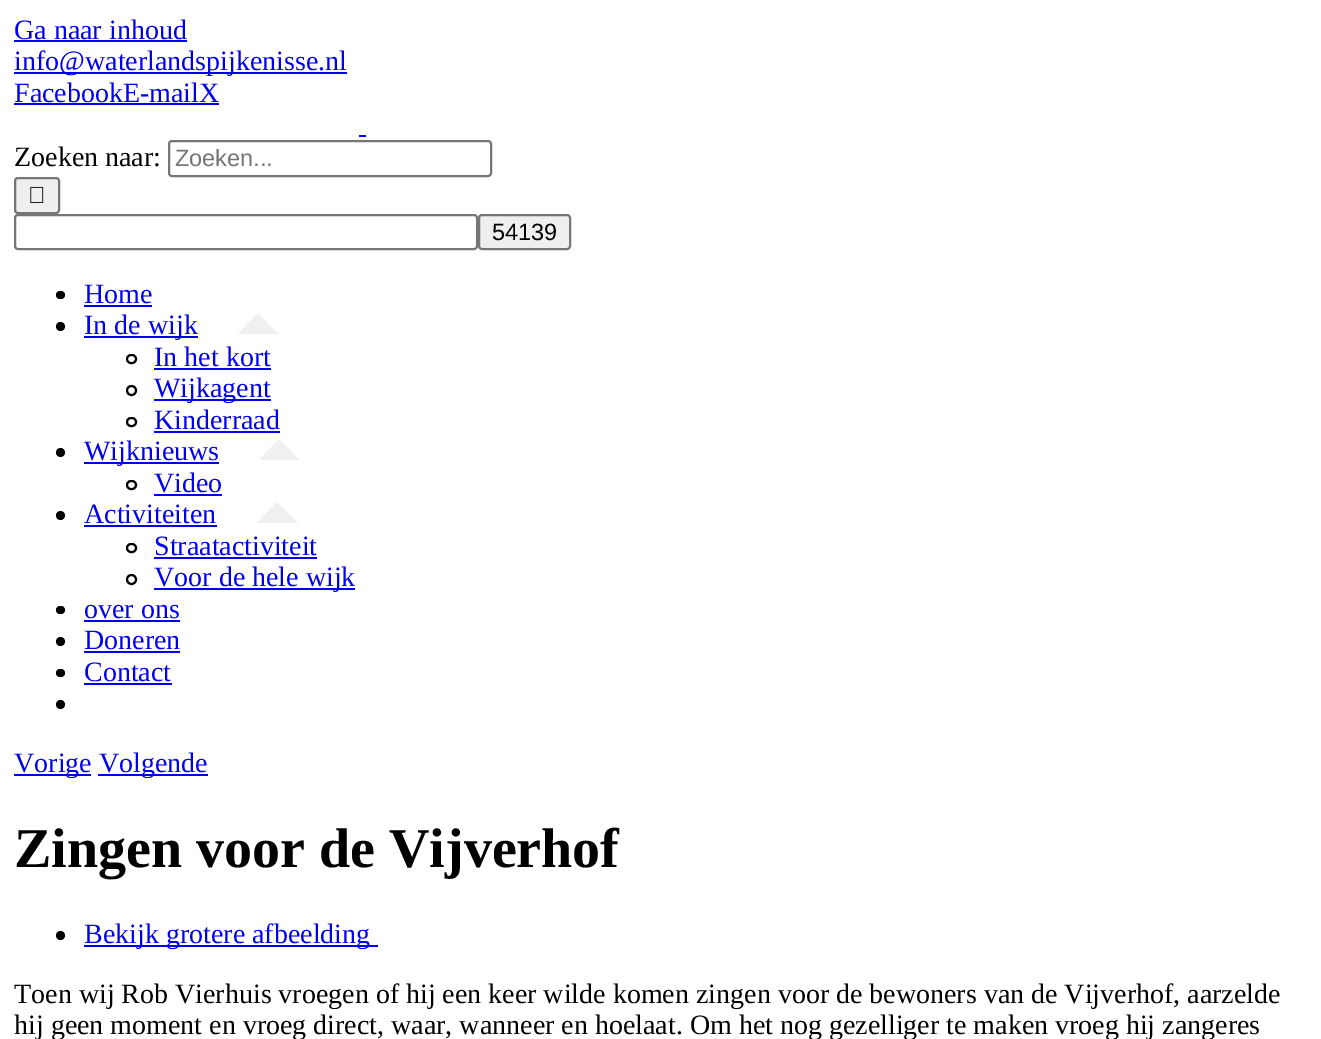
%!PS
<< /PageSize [1321 1039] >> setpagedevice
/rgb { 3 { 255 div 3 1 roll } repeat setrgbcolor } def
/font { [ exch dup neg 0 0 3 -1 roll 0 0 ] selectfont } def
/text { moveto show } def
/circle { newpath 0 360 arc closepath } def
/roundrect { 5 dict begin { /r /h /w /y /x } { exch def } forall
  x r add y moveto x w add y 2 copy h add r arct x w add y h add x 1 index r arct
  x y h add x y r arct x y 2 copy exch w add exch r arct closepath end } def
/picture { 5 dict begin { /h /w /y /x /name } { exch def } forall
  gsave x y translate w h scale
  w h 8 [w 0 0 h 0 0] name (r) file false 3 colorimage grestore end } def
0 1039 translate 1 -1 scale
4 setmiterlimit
255 255 255 rgb
0 0 1321 1039 rectfill
0 0 238 rgb
14 40 173 2 rectfill
14 72 333 2 rectfill
14 103 205 2 rectfill
359 135 7 2 rectfill
118 118 118 rgb
2 setlinewidth
169 141 322 35 3 roundrect stroke
239 239 239 rgb
15 178 44 35 3 roundrect gsave fill grestore
118 118 118 rgb
stroke
(img_01.rgb) 30 186 14 17 picture
15 215 462 34 3 roundrect stroke
239 239 239 rgb
479 215 91 34 3 roundrect gsave fill grestore
118 118 118 rgb
stroke
0 0 0 rgb
56 291 9 8 4 roundrect fill
0 0 238 rgb
84 305 68 2 rectfill
0 0 0 rgb
60.5 326.5 4.5 circle fill
0 0 238 rgb
84 336 114 2 rectfill
242 239 239 rgb
238 334 moveto 20 -21 rlineto 20 21 rlineto closepath fill
0 0 0 rgb
127 355 9 8 4 roundrect stroke
0 0 238 rgb
154 368 117 2 rectfill
0 0 0 rgb
131.5 390.5 4.5 circle stroke
0 0 238 rgb
154 399 117 2 rectfill
0 0 0 rgb
127 418 9 8 4 roundrect stroke
0 0 238 rgb
154 431 126 2 rectfill
0 0 0 rgb
60.5 452.5 4.5 circle fill
0 0 238 rgb
84 462 135 2 rectfill
242 239 239 rgb
259 460 moveto 20 -21 rlineto 20 21 rlineto closepath fill
0 0 0 rgb
127 481 9 8 4 roundrect stroke
0 0 238 rgb
154 494 68 2 rectfill
0 0 0 rgb
60.5 515.5 4.5 circle fill
0 0 238 rgb
84 525 133 2 rectfill
242 239 239 rgb
257 523 moveto 20 -21 rlineto 21 21 rlineto closepath fill
0 0 0 rgb
127 544 9 8 4 roundrect stroke
0 0 238 rgb
154 557 163 2 rectfill
0 0 0 rgb
131.5 579.5 4.5 circle stroke
0 0 238 rgb
154 588 201 2 rectfill
0 0 0 rgb
56 606 9 8 4 roundrect fill
0 0 238 rgb
84 620 96 2 rectfill
0 0 0 rgb
60.5 641.5 4.5 circle fill
0 0 238 rgb
84 651 96 2 rectfill
0 0 0 rgb
56 669 9 8 4 roundrect fill
0 0 238 rgb
84 683 88 2 rectfill
0 0 0 rgb
60.5 704.5 4.5 circle fill
0 0 238 rgb
14 774 77 2 rectfill
98 774 110 2 rectfill
0 0 0 rgb
60.5 935.5 4.5 circle fill
0 0 238 rgb
84 945 294 2 rectfill
/LiberationSerif-Regular 28 font
(Ga naar inhoud) 14 39 text
(info@waterlandspijkenisse.nl) 14 70 text
(FacebookE-mailX) 14 102 text
0 0 0 rgb
(Zoeken naar:) 14 166 text
/LiberationSans-Regular 23.5 font
117 117 117 rgb
(Zoeken...) 175 166 text
0 0 0 rgb
(54139) 492 240 text
/LiberationSerif-Regular 28 font
0 0 238 rgb
(Home) 84 303 text
(In de wijk) 84 334 text
(In het kort) 154 366 text
(Wijkagent) 154 397 text
(Kinderraad) 154 429 text
(Wijknieuws) 84 460 text
(Video) 154 492 text
(Activiteiten) 84 523 text
(Straatactiviteit) 154 555 text
(Voor de hele wijk) 154 586 text
(over ons) 84 618 text
(Doneren) 84 649 text
(Contact) 84 681 text
(Vorige) 14 772 text
(Volgende) 99 772 text
/LiberationSerif-Bold 56 font
0 0 0 rgb
(Zingen voor de Vijverhof) 14 867 text
/LiberationSerif-Regular 28 font
0 0 238 rgb
(Bekijk grotere afbeelding) 84 943 text
0 0 0 rgb
(Toen wij Rob Vierhuis vroegen of hij een keer wilde komen zingen voor de bewoners van de Vijverhof, aarzelde) 14 1003 text
(hij geen moment en vroeg direct, waar, wanneer en hoelaat. Om het nog gezelliger te maken vroeg hij zangeres) 14 1034 text
showpage
